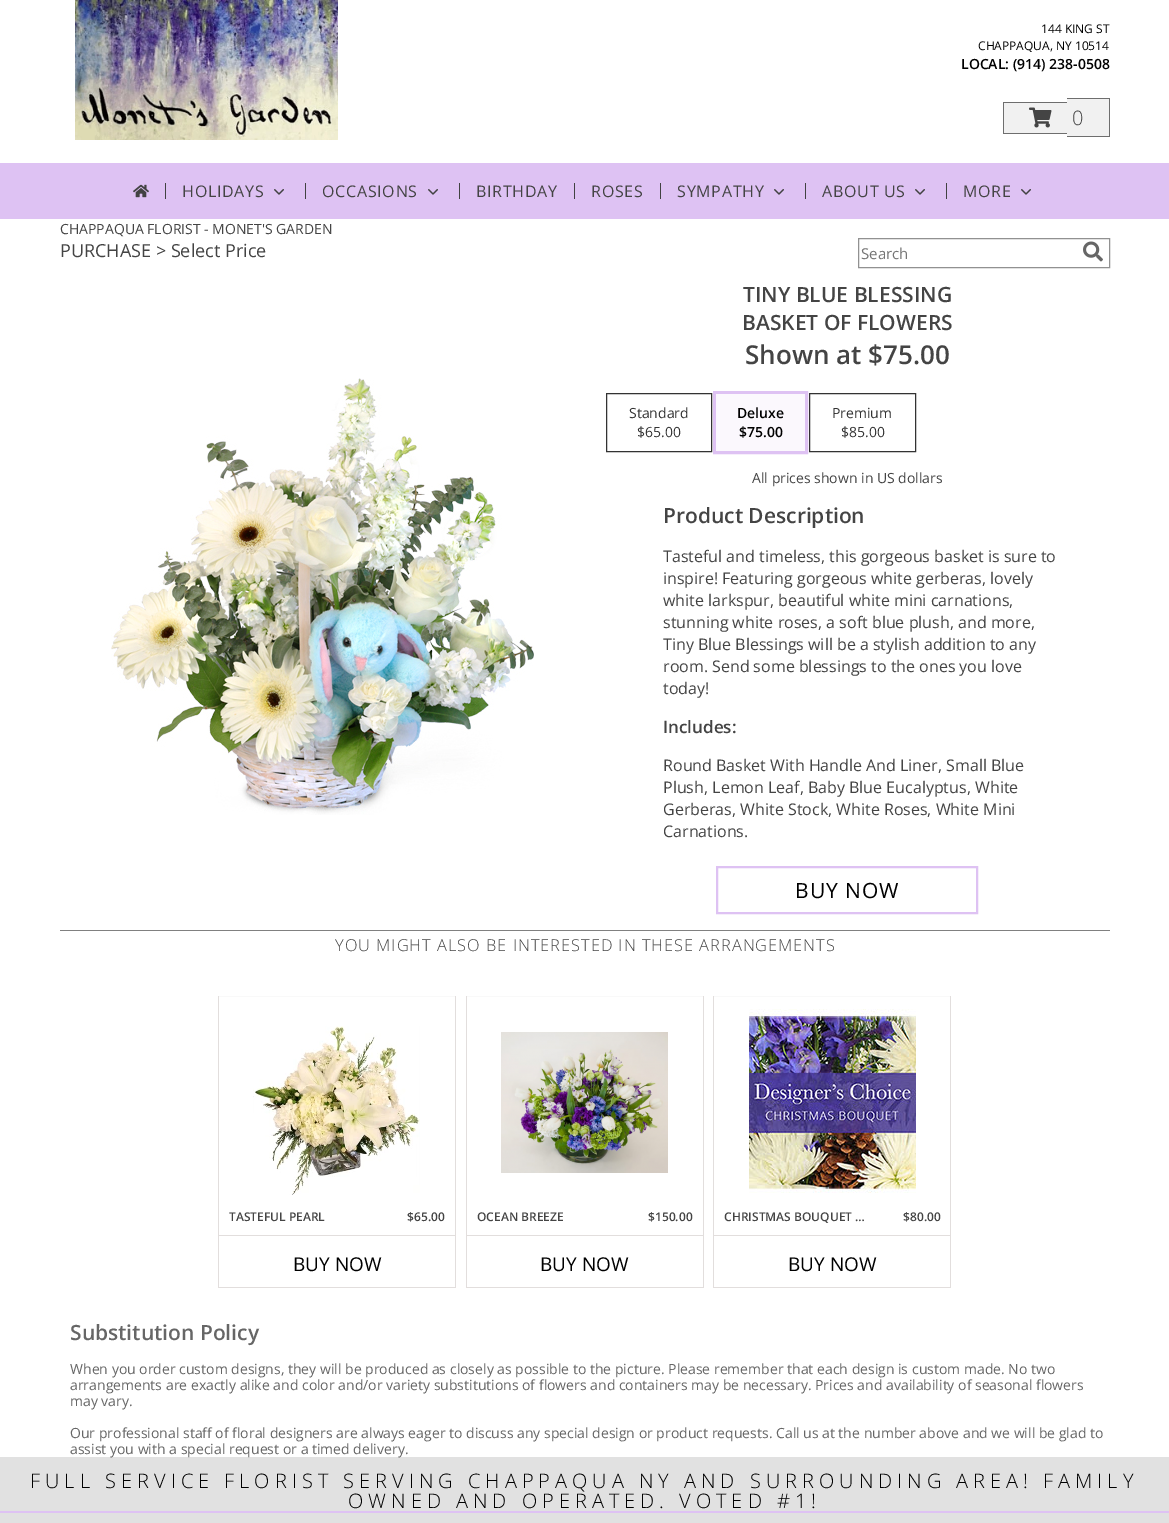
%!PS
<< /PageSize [1169 1523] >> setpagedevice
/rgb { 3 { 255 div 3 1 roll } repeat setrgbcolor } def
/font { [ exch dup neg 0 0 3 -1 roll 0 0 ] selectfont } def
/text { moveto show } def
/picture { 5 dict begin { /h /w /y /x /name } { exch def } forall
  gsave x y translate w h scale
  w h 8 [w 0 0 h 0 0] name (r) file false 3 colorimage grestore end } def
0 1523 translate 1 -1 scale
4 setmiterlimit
255 255 255 rgb
0 0 1169 1523 rectfill
(img_01.rgb) 75 0 263 140 picture
241 241 241 rgb
1004 103 63 30 rectfill
110 110 110 rgb
1003 102 64 1 rectfill
1003 133 64 1 rectfill
1003 102 1 32 rectfill
241 241 241 rgb
1067 98 5 39 rectfill
110 110 110 rgb
1067 98 43 1 rectfill
1067 136 5 1 rectfill
241 241 241 rgb
1072 99 37 37 rectfill
110 110 110 rgb
1109 98 1 39 rectfill
1072 136 38 1 rectfill
(img_02.rgb) 1029 107 23 21 picture
222 194 243 rgb
0 163 1169 56 rectfill
(img_03.rgb) 133 184 16 14 picture
66 66 66 rgb
165 183 1 16 rectfill
(img_04.rgb) 274 189 10 6 picture
305 183 1 16 rectfill
(img_04.rgb) 428 189 10 6 picture
459 183 1 16 rectfill
574 183 1 16 rectfill
660 183 1 16 rectfill
(img_04.rgb) 774 189 10 6 picture
805 183 1 16 rectfill
(img_04.rgb) 915 189 10 6 picture
946 183 1 16 rectfill
(img_04.rgb) 1021 189 10 6 picture
145 145 145 rgb
858.5 238.5 251 29 rectstroke
(img_05.rgb) 1083 241 20 21 picture
(img_06.rgb) 111 378 423 437 picture
51 51 51 rgb
606.5 393.5 105 58 rectstroke
222 194 243 rgb
3 setlinewidth
714.5 392.5 92 60 rectstroke
251 248 253 rgb
716 394 89 57 rectfill
51 51 51 rgb
1 setlinewidth
809.5 393.5 106 58 rectstroke
222 194 243 rgb
2 setlinewidth
717 867 260 46 rectstroke
128 128 128 rgb
60 930 1050 1 rectfill
249 249 249 rgb
218 996 238 1 rectfill
226 222 221 rgb
455 996 1 292 rectfill
218 1287 238 1 rectfill
218 996 1 292 rectfill
(img_07.rgb) 253 1026 167 169 picture
219 1235 236 1 rectfill
249 249 249 rgb
466 996 238 1 rectfill
226 222 221 rgb
703 996 1 292 rectfill
466 1287 238 1 rectfill
466 996 1 292 rectfill
(img_08.rgb) 501 1032 167 141 picture
467 1235 236 1 rectfill
249 249 249 rgb
713 996 238 1 rectfill
226 222 221 rgb
950 996 1 292 rectfill
713 1287 238 1 rectfill
713 996 1 292 rectfill
(img_09.rgb) 749 1009 167 184 picture
714 1235 236 1 rectfill
225 225 225 rgb
0 1457 1169 66 rectfill
222 194 243 rgb
0 1511 1169 2 rectfill
/OpenSans-Regular 12 font
0 0 0 rgb
(144 KING ST) 1041 33 text
(CHAPPAQUA, NY 10514) 978 50 text
/OpenSans-SemiBold 14 font
(LOCAL: \(914\) 238-0508) 961 69 text
/OpenSans-Light 20 font
68 68 68 rgb
(0) 1072 125 text
/OpenSans-Regular 16 font
182 197 moveto 0.75 0 (HOLIDAYS) ashow
322 197 moveto 0.75 0 (OCCASIONS) ashow
476 197 moveto 0.75 0 (BIRTHDAY) ashow
591 197 moveto 0.75 0 (ROSES) ashow
677 197 moveto 0.75 0 (SYMPATHY) ashow
822 197 moveto 0.75 0 (ABOUT US) ashow
963 197 moveto 0.75 0 (MORE) ashow
/OpenSans-Regular 14 font
(CHAPPAQUA FLORIST - MONET'S GARDEN) 60 234 text
/OpenSans-Regular 18 font
(PURCHASE > Select Price) 60 257 text
/OpenSans-Regular 15 font
117 117 117 rgb
(Search) 861 259 text
/OpenSans-SemiBold 21 font
68 68 68 rgb
(TINY BLUE BLESSING) 743 302 text
(BASKET OF FLOWERS) 742 330 text
/OpenSans-SemiBold 26 font
(Shown at $75.00) 745 364 text
/OpenSans-Regular 14 font
51 51 51 rgb
(Standard) 629 418 text
($65.00) 637 437 text
/OpenSans-SemiBold 14 font
0 0 0 rgb
(Deluxe) 737 418 text
($75.00) 739 437 text
/OpenSans-Regular 14 font
51 51 51 rgb
(Premium) 832 418 text
($85.00) 841 437 text
68 68 68 rgb
(All prices shown in US dollars) 752 483 text
/OpenSans-SemiBold 21 font
(Product Description) 663 523 text
/OpenSans-Regular 16 font
(Tasteful and timeless, this gorgeous basket is sure to) 663 562 text
(inspire! Featuring gorgeous white gerberas, lovely) 663 584 text
(white larkspur, beautiful white mini carnations,) 663 606 text
(stunning white roses, a soft blue plush, and more,) 663 628 text
(Tiny Blue Blessings will be a stylish addition to any) 663 650 text
(room. Send some blessings to the ones you love) 663 672 text
(today!) 663 694 text
/OpenSans-SemiBold 17 font
(Includes:) 663 733 text
/OpenSans-Regular 16 font
(Round Basket With Handle And Liner, Small Blue) 663 771 text
(Plush, Lemon Leaf, Baby Blue Eucalyptus, White) 663 793 text
(Gerberas, White Stock, White Roses, White Mini) 663 815 text
(Carnations.) 663 837 text
/OpenSans-Regular 21 font
0 0 0 rgb
795 898 moveto 1 0 (BUY NOW) ashow
/OpenSans-Light 16.4 font
68 68 68 rgb
335 951 moveto 1 0 (YOU MIGHT ALSO BE INTERESTED IN THESE ARRANGEMENTS) ashow
/OpenSans-SemiBold 12 font
(TASTEFUL PEARL) 229 1221 text
($65.00) 407 1221 text
/OpenSans-Regular 19 font
0 0 0 rgb
(BUY NOW) 293 1271 text
/OpenSans-SemiBold 12 font
68 68 68 rgb
(OCEAN BREEZE) 477 1221 text
($150.00) 648 1221 text
/OpenSans-Regular 19 font
0 0 0 rgb
(BUY NOW) 540 1271 text
/OpenSans-SemiBold 12 font
68 68 68 rgb
(CHRISTMAS BOUQUET …) 724 1221 text
($80.00) 903 1221 text
/OpenSans-Regular 19 font
0 0 0 rgb
(BUY NOW) 788 1271 text
/OpenSans-SemiBold 21 font
102 102 102 rgb
(Substitution Policy) 70 1340 text
/OpenSans-Regular 14 font
(When you order custom designs, they will be produced as closely as possible to the picture. Please remember that each design is custom made. No two) 70 1374 text
(arrangements are exactly alike and color and/or variety substitutions of flowers and containers may be necessary. Prices and availability of seasonal flowers) 70 1390 text
(may vary.) 70 1406 text
(Our professional staff of floral designers are always eager to discuss any special design or product requests. Call us at the number above and we will be glad to) 70 1438 text
(assist you with a special request or a timed delivery.) 70 1454 text
/OpenSans-Light 20 font
0 0 0 rgb
30 1488 moveto 5 0 (FULL SERVICE FLORIST SERVING CHAPPAQUA NY AND SURROUNDING AREA! FAMILY) ashow
348 1508 moveto 5 0 (OWNED AND OPERATED. VOTED #1!) ashow
showpage
